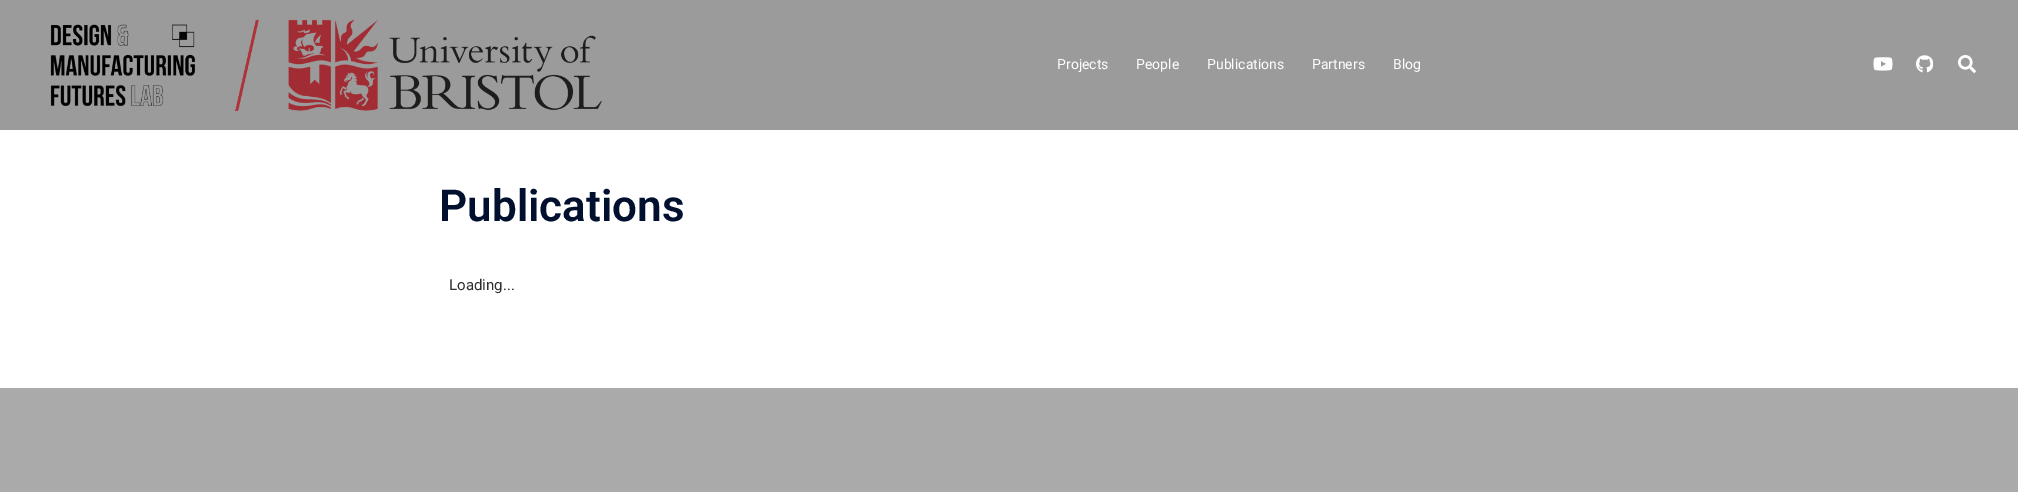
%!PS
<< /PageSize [2018 492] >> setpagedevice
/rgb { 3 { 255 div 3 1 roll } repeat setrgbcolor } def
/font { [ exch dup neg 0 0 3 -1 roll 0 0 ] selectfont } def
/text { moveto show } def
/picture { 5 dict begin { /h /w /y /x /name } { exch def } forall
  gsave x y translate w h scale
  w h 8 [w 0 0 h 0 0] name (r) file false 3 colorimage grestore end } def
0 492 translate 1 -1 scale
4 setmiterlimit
255 255 255 rgb
0 0 2018 492 rectfill
155 155 155 rgb
0 0 2018 130 rectfill
(img_01.rgb) 50 19 552 92 picture
(img_02.rgb) 1873 57 20 14 picture
(img_03.rgb) 1916 55 17 18 picture
(img_04.rgb) 1958 55 18 18 picture
170 170 170 rgb
0 388 2018 104 rectfill
/Roboto-Regular 14 font
255 255 255 rgb
(Projects) 1057 69 text
(People) 1136 69 text
(Publications) 1207 69 text
(Partners) 1312 69 text
(Blog) 1393 69 text
/Roboto-SemiBold 44 font
0 16 46 rgb
(Publications) 439 221 text
/Roboto-Regular 15 font
45 46 48 rgb
(Loading...) 449 290 text
showpage
